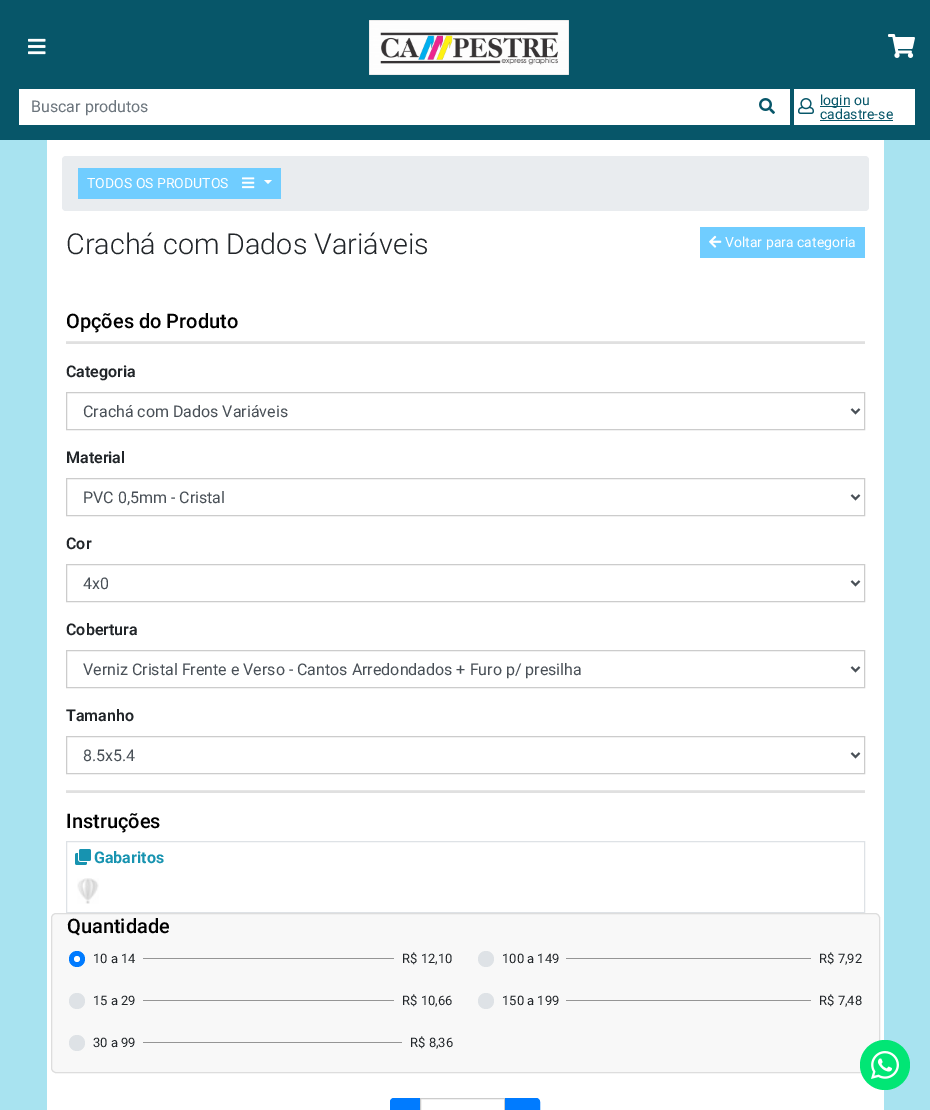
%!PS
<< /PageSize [930 1110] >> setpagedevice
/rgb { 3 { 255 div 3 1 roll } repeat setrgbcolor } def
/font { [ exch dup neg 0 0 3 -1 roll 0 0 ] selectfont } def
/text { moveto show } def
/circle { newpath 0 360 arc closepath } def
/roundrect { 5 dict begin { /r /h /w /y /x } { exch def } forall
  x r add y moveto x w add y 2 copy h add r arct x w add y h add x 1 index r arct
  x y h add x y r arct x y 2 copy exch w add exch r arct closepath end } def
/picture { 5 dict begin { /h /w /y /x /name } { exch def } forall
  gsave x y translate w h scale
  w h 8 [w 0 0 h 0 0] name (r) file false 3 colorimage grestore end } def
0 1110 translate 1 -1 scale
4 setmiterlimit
168 227 240 rgb
0 0 930 1110 rectfill
7 86 105 rgb
0 0 930 140 rectfill
(img_01.rgb) 28 38 18 17 picture
(img_02.rgb) 369 20 200 55 picture
(img_03.rgb) 888 34 27 24 picture
255 255 255 rgb
19 89 771 36 rectfill
(img_04.rgb) 759 98 16 16 picture
794 89 121 36 rectfill
(img_05.rgb) 798 98 16 16 picture
7 86 105 rgb
820 106 30 1 rectfill
820 120 73 1 rectfill
255 255 255 rgb
47 140 837 970 rectfill
233 236 239 rgb
62 156 807 55 4 roundrect fill
112 205 255 rgb
78 168 203 31 rectfill
(img_06.rgb) 242 177 13 12 picture
255 255 255 rgb
264 180 moveto 8 0 rlineto -4 4 rlineto closepath fill
112 205 255 rgb
700 227 165 31 rectfill
(img_07.rgb) 709 235 13 13 picture
230 230 230 rgb
66 341 799 1 rectfill
224 224 224 rgb
66 342 799 2 rectfill
204 204 204 rgb
66.5 392.5 798 37 rectstroke
73 80 87 rgb
2 setlinewidth
851.5 409 moveto 4 4 rlineto 4 -4 rlineto stroke
204 204 204 rgb
1 setlinewidth
66.5 478.5 798 37 rectstroke
73 80 87 rgb
2 setlinewidth
851.5 495 moveto 4 4 rlineto 4 -4 rlineto stroke
204 204 204 rgb
1 setlinewidth
66.5 564.5 798 37 rectstroke
73 80 87 rgb
2 setlinewidth
851.5 581 moveto 4 4 rlineto 4 -4 rlineto stroke
204 204 204 rgb
1 setlinewidth
66.5 650.5 798 37 rectstroke
73 80 87 rgb
2 setlinewidth
851.5 667 moveto 4 4 rlineto 4 -4 rlineto stroke
204 204 204 rgb
1 setlinewidth
66.5 736.5 798 37 rectstroke
73 80 87 rgb
2 setlinewidth
851.5 753 moveto 4 4 rlineto 4 -4 rlineto stroke
230 230 230 rgb
66 790 799 1 rectfill
224 224 224 rgb
66 791 799 2 rectfill
222 226 230 rgb
1 setlinewidth
66.5 841.5 798 71 rectstroke
(img_08.rgb) 75 849 16 16 picture
(img_09.rgb) 77 878 22 26 picture
248 248 248 rgb
51.5 913.5 828 159 4.5 roundrect gsave fill grestore
221 221 221 rgb
stroke
0 123 255 rgb
77 959 8 circle fill
255 255 255 rgb
77 959 3 circle fill
149 149 149 rgb
143 958 251 1 rectfill
222 226 230 rgb
486 959 8 circle fill
149 149 149 rgb
566 958 245 1 rectfill
222 226 230 rgb
77 1001 8 circle fill
149 149 149 rgb
143 1000 251 1 rectfill
222 226 230 rgb
486 1001 8 circle fill
149 149 149 rgb
566 1000 245 1 rectfill
222 226 230 rgb
77 1043 8 circle fill
149 149 149 rgb
143 1042 259 1 rectfill
0 123 255 rgb
394 1098.5 moveto 25.5 0 rlineto 0 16 rlineto -25.5 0 rlineto -2 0 -3.5 -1.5 -3.5 -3.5 rcurveto 0 -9 rlineto 0 -2 1.5 -3.5 3.5 -3.5 rcurveto closepath gsave fill grestore
stroke
204 204 204 rgb
420.5 1098.5 84 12 rectstroke
0 123 255 rgb
505.5 1098.5 moveto 30.5 0 rlineto 2 0 3.5 1.5 3.5 3.5 rcurveto 0 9 rlineto 0 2 -1.5 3.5 -3.5 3.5 rcurveto -30.5 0 rlineto closepath gsave fill grestore
stroke
1 230 117 rgb
885 1065 25 circle fill
(img_10.rgb) 871 1051 28 28 picture
/Roboto-Regular 16 font
108 117 125 rgb
(Buscar produtos) 31 112 text
/Roboto-Regular 14 font
7 86 105 rgb
(login ou) 820 105 text
(cadastre-se) 820 119 text
255 255 255 rgb
(TODOS OS PRODUTOS) 87 188 text
/Roboto-Light 28.75 font
33 37 41 rgb
(Crachá com Dados Variáveis) 66 254 text
/Roboto-Regular 14 font
255 255 255 rgb
(Voltar para categoria) 725 247 text
/Roboto-Medium 20 font
0 0 0 rgb
(Opções do Produto) 66 328 text
/Roboto-SemiBold 16 font
33 37 41 rgb
(Categoria) 66 377 text
/Roboto-Regular 16 font
73 80 87 rgb
(Crachá com Dados Variáveis) 83 417 text
/Roboto-SemiBold 16 font
33 37 41 rgb
(Material) 66 463 text
/Roboto-Regular 16 font
73 80 87 rgb
(PVC 0,5mm - Cristal) 83 503 text
/Roboto-SemiBold 16 font
33 37 41 rgb
(Cor) 66 549 text
/Roboto-Regular 16 font
73 80 87 rgb
(4x0) 83 589 text
/Roboto-SemiBold 16 font
33 37 41 rgb
(Cobertura) 66 635 text
/Roboto-Regular 16 font
73 80 87 rgb
(Verniz Cristal Frente e Verso - Cantos Arredondados + Furo p/ presilha) 83 675 text
/Roboto-SemiBold 16 font
33 37 41 rgb
(Tamanho) 66 721 text
/Roboto-Regular 16 font
73 80 87 rgb
(8.5x5.4) 83 761 text
/Roboto-Medium 20 font
0 0 0 rgb
(Instruções) 66 828 text
/Roboto-Bold 16 font
23 147 176 rgb
(Gabaritos) 94 863 text
/Roboto-Medium 20 font
0 0 0 rgb
(Quantidade) 67 933 text
/Roboto-Regular 13 font
33 37 41 rgb
(10 a 14) 93 963 text
(R$ 12,10) 402 963 text
(100 a 149) 502 963 text
(R$ 7,92) 819 963 text
(15 a 29) 93 1005 text
(R$ 10,66) 402 1005 text
(150 a 199) 502 1005 text
(R$ 7,48) 819 1005 text
(30 a 99) 93 1047 text
(R$ 8,36) 410 1047 text
showpage
